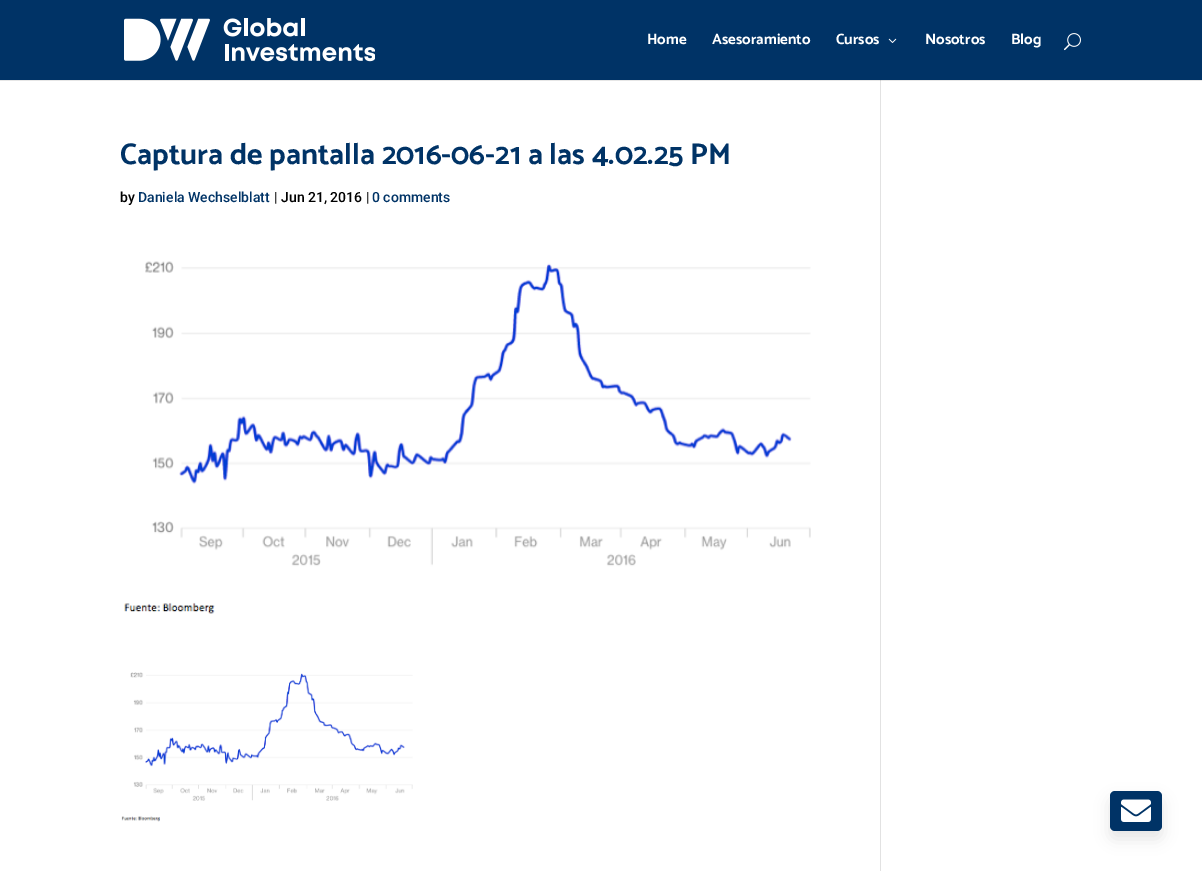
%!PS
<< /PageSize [1202 871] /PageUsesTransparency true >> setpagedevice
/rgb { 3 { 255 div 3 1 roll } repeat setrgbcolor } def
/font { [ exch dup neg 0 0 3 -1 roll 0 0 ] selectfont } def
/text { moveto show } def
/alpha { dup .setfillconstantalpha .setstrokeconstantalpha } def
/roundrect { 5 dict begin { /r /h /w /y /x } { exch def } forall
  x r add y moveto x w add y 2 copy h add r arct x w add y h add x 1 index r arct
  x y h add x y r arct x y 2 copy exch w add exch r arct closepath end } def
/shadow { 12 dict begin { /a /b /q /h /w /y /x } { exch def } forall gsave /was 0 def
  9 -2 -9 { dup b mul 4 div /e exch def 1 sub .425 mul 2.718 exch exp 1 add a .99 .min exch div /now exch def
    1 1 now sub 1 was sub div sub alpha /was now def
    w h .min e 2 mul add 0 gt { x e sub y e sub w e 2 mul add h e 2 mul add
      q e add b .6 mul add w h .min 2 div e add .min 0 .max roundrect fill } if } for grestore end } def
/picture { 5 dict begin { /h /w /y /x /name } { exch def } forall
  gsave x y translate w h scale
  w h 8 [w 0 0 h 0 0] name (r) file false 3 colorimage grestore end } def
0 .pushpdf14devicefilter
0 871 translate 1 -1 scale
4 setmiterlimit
255 255 255 rgb
0 0 1202 871 rectfill
230 230 230 rgb
0 80 1202 1 rectfill
0 51 102 rgb
0 0 1202 80 rectfill
(img_01.rgb) 124 18 251 44 picture
(img_02.rgb) 888 38 9 5 picture
(img_03.rgb) 1064 33 17 18 picture
(img_04.rgb) 124 261 687 353 picture
(img_05.rgb) 121 672 292 150 picture
226 226 226 rgb
880 80 1 791 rectfill
203 203 203 rgb
880 80 1 1 rectfill
0 0 0 rgb
1110 799 52 40 5 7.5 0.1 shadow
0 51 102 rgb
1110 791 52 40 5 roundrect fill
(img_06.rgb) 1121 799 30 23 picture
/Catamaran-Bold 15 font
255 255 255 rgb
(Home) 647 44 text
(Asesoramiento) 712 44 text
(Cursos) 836 44 text
(Nosotros) 925 44 text
(Blog) 1011 44 text
/Catamaran-Bold 30 font
0 51 102 rgb
(Captura de pantalla 2016-06-21 a las 4.02.25 PM) 120 164 text
/Roboto-Medium 14 font
0 0 0 rgb
(by) 120 202 text
0 51 102 rgb
(Daniela Wechselblatt) 138 202 text
0 0 0 rgb
(| Jun 21, 2016 |) 274 202 text
0 51 102 rgb
(0 comments) 372 202 text
.poppdf14devicefilter showpage
